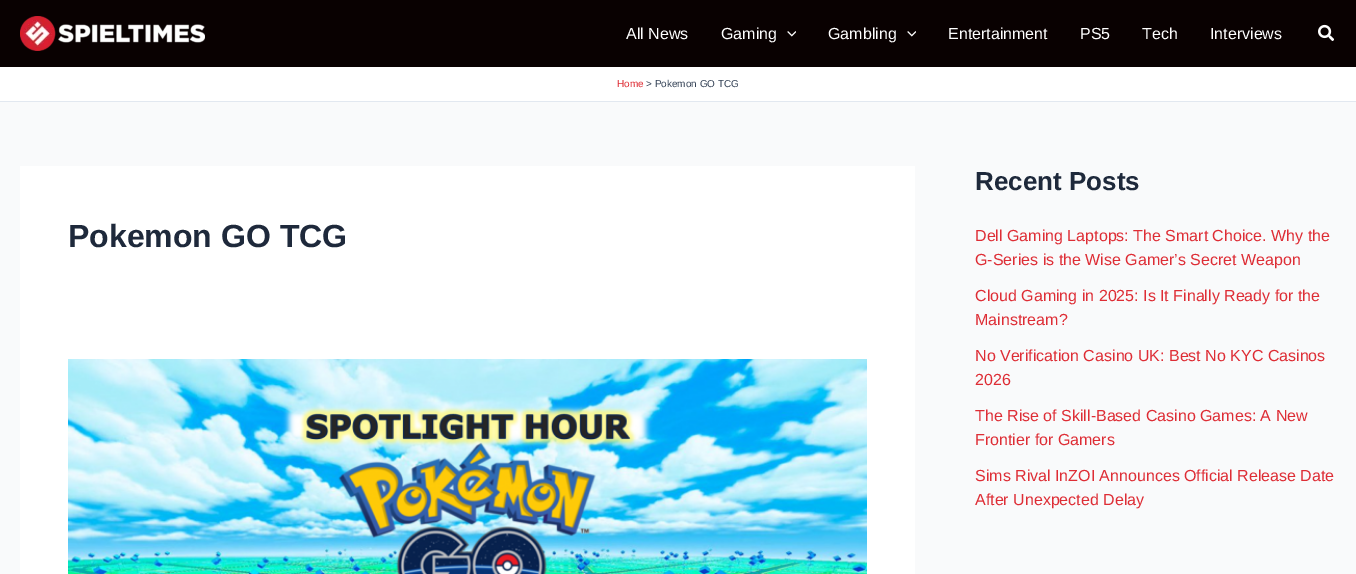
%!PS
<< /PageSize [1356 574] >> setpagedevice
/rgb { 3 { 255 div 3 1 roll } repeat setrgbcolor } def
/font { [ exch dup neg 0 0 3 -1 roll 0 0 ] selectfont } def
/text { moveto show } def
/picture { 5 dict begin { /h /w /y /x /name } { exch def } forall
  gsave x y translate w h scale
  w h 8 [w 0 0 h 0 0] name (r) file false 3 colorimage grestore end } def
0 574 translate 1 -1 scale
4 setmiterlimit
249 250 251 rgb
0 0 1356 574 rectfill
9 1 1 rgb
0 0 1356 67 rectfill
(img_01.rgb) 20 16 185 35 picture
(img_02.rgb) 787 31 9 6 picture
(img_02.rgb) 907 31 9 6 picture
(img_03.rgb) 1318 24 16 17 picture
255 255 255 rgb
0 67 1356 34 rectfill
226 232 240 rgb
0 101 1356 1 rectfill
255 255 255 rgb
20 166 895 408 rectfill
(img_04.rgb) 68 359 799 215 picture
/LiberationSans-Regular 16 font
(All News) 626 39 text
(Gaming) 721 39 text
(Gambling) 828 39 text
(Entertainment) 948 39 text
(PS5) 1080 39 text
(Tech) 1142 39 text
(Interviews) 1210 39 text
/LiberationSans-Regular 10 font
222 45 53 rgb
(Home) 617 87 text
51 65 85 rgb
(> Pokemon GO TCG) 646 87 text
/LiberationSans-Bold 32 font
30 41 59 rgb
(Pokemon GO TCG) 68 247 text
/LiberationSans-Bold 26 font
(Recent Posts) 975 190 text
/LiberationSans-Regular 16 font
222 45 53 rgb
(Dell Gaming Laptops: The Smart Choice. Why the) 975 241 text
(G-Series is the Wise Gamer’s Secret Weapon) 975 265 text
(Cloud Gaming in 2025: Is It Finally Ready for the) 975 301 text
(Mainstream?) 975 325 text
(No Verification Casino UK: Best No KYC Casinos) 975 361 text
(2026) 975 385 text
(The Rise of Skill-Based Casino Games: A New) 975 421 text
(Frontier for Gamers) 975 445 text
(Sims Rival InZOI Announces Official Release Date) 975 481 text
(After Unexpected Delay) 975 505 text
showpage
